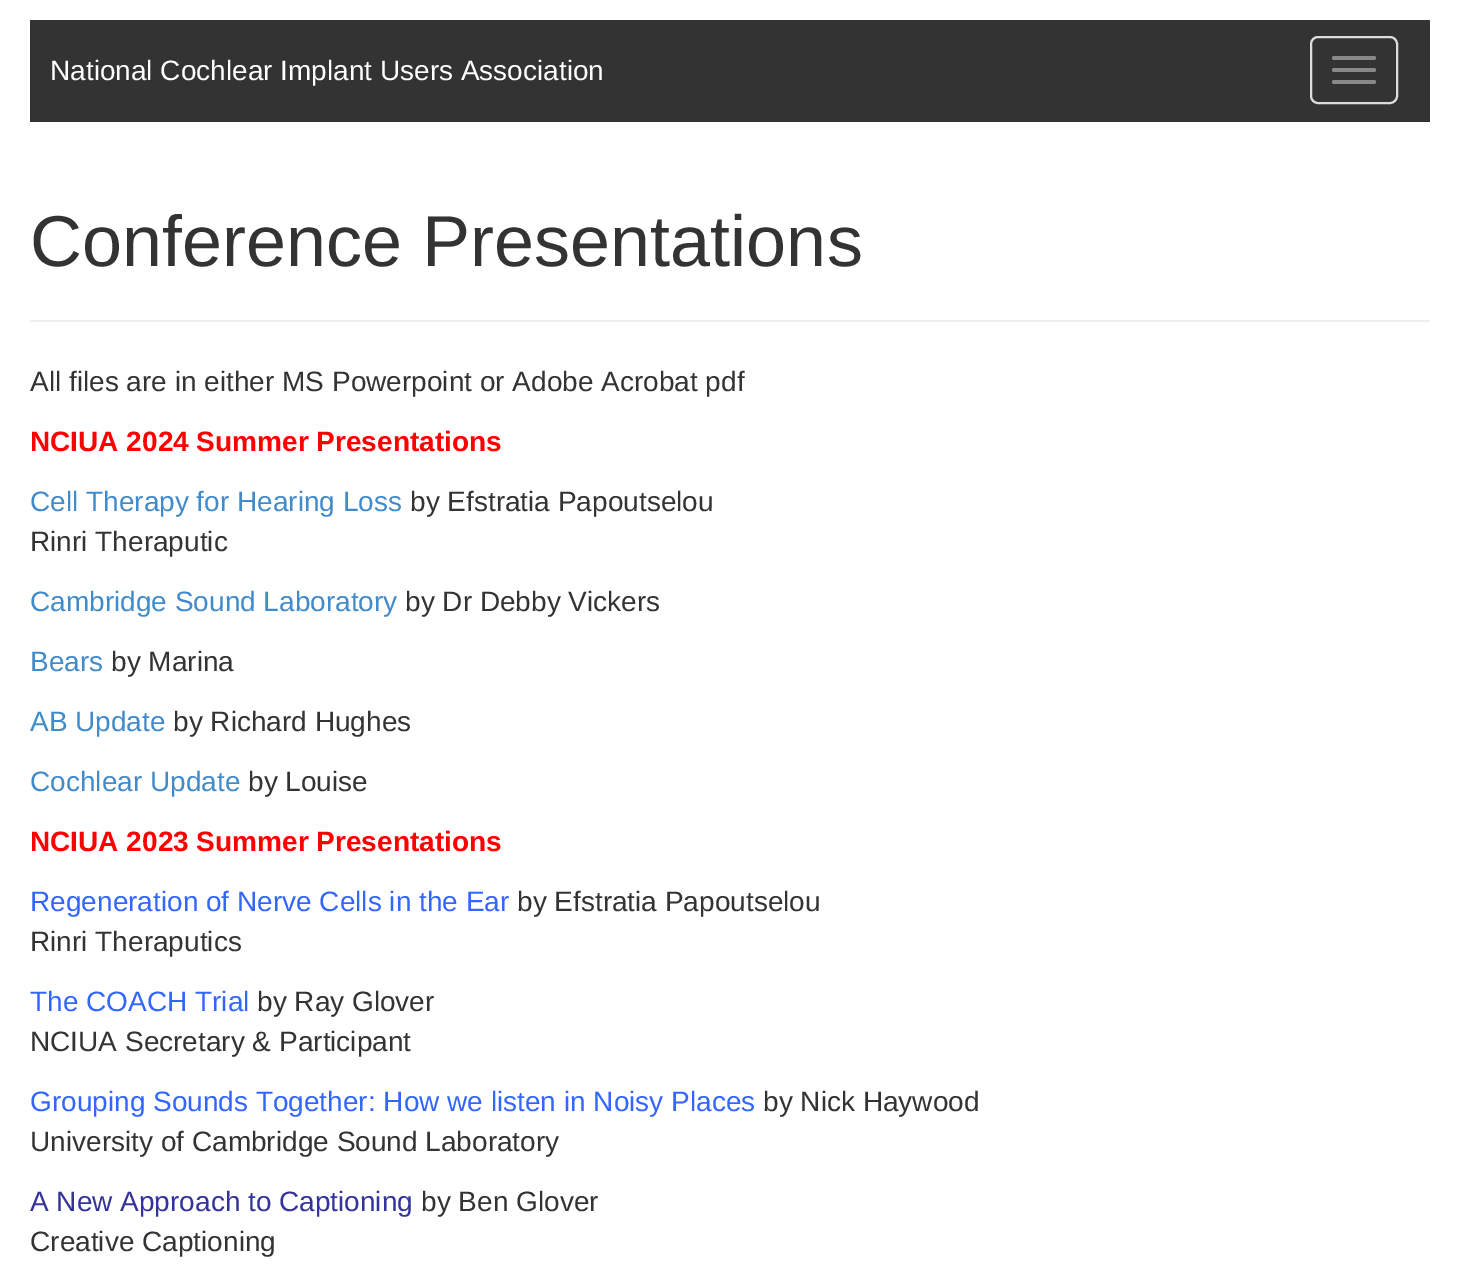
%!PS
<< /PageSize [1459 1278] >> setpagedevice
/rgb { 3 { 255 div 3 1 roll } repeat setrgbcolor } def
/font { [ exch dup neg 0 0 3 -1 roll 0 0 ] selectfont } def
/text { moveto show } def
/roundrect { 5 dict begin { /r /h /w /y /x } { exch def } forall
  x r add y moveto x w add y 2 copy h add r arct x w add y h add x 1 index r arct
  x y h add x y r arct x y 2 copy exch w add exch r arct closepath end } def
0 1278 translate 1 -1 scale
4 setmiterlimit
255 255 255 rgb
0 0 1459 1278 rectfill
51 51 51 rgb
30 20 1400 102 rectfill
221 221 221 rgb
2 setlinewidth
1311 37 86 66 7 roundrect stroke
136 136 136 rgb
1332 56 44 4 2 roundrect fill
1332 68 44 4 2 roundrect fill
1332 80 44 4 2 roundrect fill
238 238 238 rgb
30 320 1400 2 rectfill
/LiberationSans-Regular 28 font
255 255 255 rgb
(National Cochlear Implant Users Association) 50 80 text
/LiberationSans-Regular 72 font
51 51 51 rgb
(Conference Presentations) 30 266 text
/LiberationSans-Regular 28 font
(All files are in either MS Powerpoint or Adobe Acrobat pdf) 30 391 text
/LiberationSans-Bold 28 font
255 0 0 rgb
(NCIUA 2024 Summer Presentations) 30 451 text
/LiberationSans-Regular 28 font
66 139 202 rgb
(Cell Therapy for Hearing Loss) 30 511 text
51 51 51 rgb
(by Efstratia Papoutselou) 410 511 text
(Rinri Theraputic) 30 551 text
66 139 202 rgb
(Cambridge Sound Laboratory) 30 611 text
51 51 51 rgb
(by Dr Debby Vickers) 405 611 text
66 139 202 rgb
(Bears) 30 671 text
51 51 51 rgb
(by Marina) 111 671 text
66 139 202 rgb
(AB Update) 30 731 text
51 51 51 rgb
(by Richard Hughes) 173 731 text
66 139 202 rgb
(Cochlear Update) 30 791 text
51 51 51 rgb
(by Louise) 248 791 text
/LiberationSans-Bold 28 font
255 0 0 rgb
(NCIUA 2023 Summer Presentations) 30 851 text
/LiberationSans-Regular 28 font
51 102 255 rgb
(Regeneration of Nerve Cells in the Ear) 30 911 text
51 51 51 rgb
(by Efstratia Papoutselou) 517 911 text
(Rinri Theraputics) 30 951 text
51 102 255 rgb
(The COACH Trial) 30 1011 text
51 51 51 rgb
(by Ray Glover) 257 1011 text
(NCIUA Secretary & Participant) 30 1051 text
51 102 255 rgb
(Grouping Sounds Together: How we listen in Noisy Places) 30 1111 text
51 51 51 rgb
(by Nick Haywood) 763 1111 text
(University of Cambridge Sound Laboratory) 30 1151 text
51 51 153 rgb
(A New Approach to Captioning) 30 1211 text
51 51 51 rgb
(by Ben Glover) 421 1211 text
(Creative Captioning) 30 1251 text
showpage
